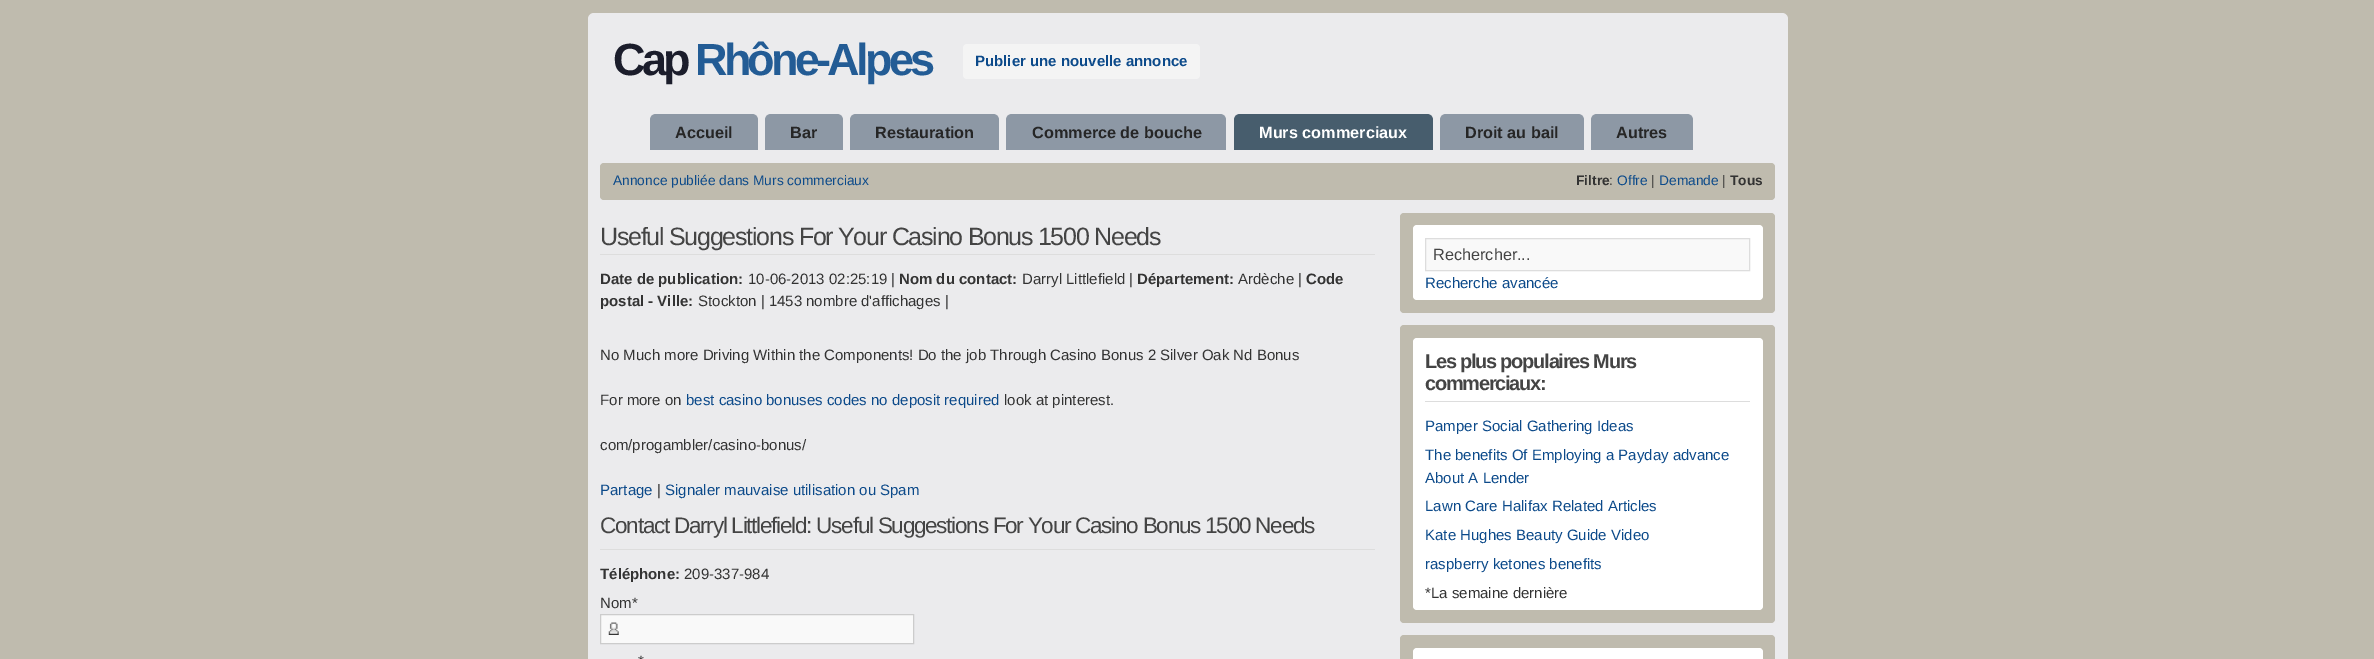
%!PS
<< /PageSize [2374 659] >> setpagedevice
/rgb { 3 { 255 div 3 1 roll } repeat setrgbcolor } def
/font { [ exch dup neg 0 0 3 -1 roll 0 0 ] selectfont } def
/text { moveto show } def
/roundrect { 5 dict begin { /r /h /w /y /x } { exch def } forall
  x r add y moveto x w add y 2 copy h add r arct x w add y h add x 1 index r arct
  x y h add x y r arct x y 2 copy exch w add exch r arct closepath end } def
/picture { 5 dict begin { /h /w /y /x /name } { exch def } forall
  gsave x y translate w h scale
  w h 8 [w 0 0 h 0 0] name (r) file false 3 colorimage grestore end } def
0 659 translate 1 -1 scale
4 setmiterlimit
191 187 174 rgb
0 0 2374 659 rectfill
235 235 237 rgb
588 13 1200 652 6 roundrect fill
244 244 244 rgb
963 44 237 35 4 roundrect fill
141 152 165 rgb
656 114 moveto 96 0 rlineto 3.5 0 6 2.5 6 6 rcurveto 0 30 rlineto -108 0 rlineto 0 -30 rlineto 0 -3.5 2.5 -6 6 -6 rcurveto closepath fill
771 114 moveto 66 0 rlineto 3.5 0 6 2.5 6 6 rcurveto 0 30 rlineto -78 0 rlineto 0 -30 rlineto 0 -3.5 2.5 -6 6 -6 rcurveto closepath fill
856 114 moveto 137 0 rlineto 3.5 0 6 2.5 6 6 rcurveto 0 30 rlineto -149 0 rlineto 0 -30 rlineto 0 -3.5 2.5 -6 6 -6 rcurveto closepath fill
1012 114 moveto 208 0 rlineto 3.5 0 6 2.5 6 6 rcurveto 0 30 rlineto -220 0 rlineto 0 -30 rlineto 0 -3.5 2.5 -6 6 -6 rcurveto closepath fill
71 93 109 rgb
1240 114 moveto 187 0 rlineto 3.5 0 6 2.5 6 6 rcurveto 0 30 rlineto -199 0 rlineto 0 -30 rlineto 0 -3.5 2.5 -6 6 -6 rcurveto closepath fill
141 152 165 rgb
1446 114 moveto 132 0 rlineto 3.5 0 6 2.5 6 6 rcurveto 0 30 rlineto -144 0 rlineto 0 -30 rlineto 0 -3.5 2.5 -6 6 -6 rcurveto closepath fill
1597 114 moveto 90 0 rlineto 3.5 0 6 2.5 6 6 rcurveto 0 30 rlineto -102 0 rlineto 0 -30 rlineto 0 -3.5 2.5 -6 6 -6 rcurveto closepath fill
191 187 174 rgb
600 163 1175 37 4 roundrect fill
221 221 221 rgb
600 254 775 1 rectfill
600 549 775 1 rectfill
249 249 249 rgb
601 615 312 28 rectfill
(img_01.rgb) 608 622 11 13 picture
204 204 204 rgb
600.5 614.5 313 29 rectstroke
191 187 174 rgb
1400 213 375 100 4 roundrect fill
255 255 255 rgb
1413 225 350 75 4 roundrect fill
249 249 249 rgb
1425.5 238.5 moveto 324 0 rlineto 0 32 rlineto -324 0 rlineto closepath gsave fill grestore
221 221 221 rgb
stroke
191 187 174 rgb
1400 325 375 298 4 roundrect fill
255 255 255 rgb
1413 338 350 272 4 roundrect fill
221 221 221 rgb
1425 401 325 1 rectfill
191 187 174 rgb
1400 635 375 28 4 roundrect fill
255 255 255 rgb
1413 648 350 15 4 roundrect fill
/LiberationSans-Bold 45 font
27 29 43 rgb
613 75 moveto -3.75 0 (Cap) ashow
35 92 149 rgb
695 75 moveto -3.75 0 (Rhône-Alpes) ashow
/LiberationSans-Bold 15 font
12 74 138 rgb
(Publier une nouvelle annonce) 975 66 text
/LiberationSans-Bold 16.25 font
38 38 38 rgb
(Accueil) 675 138 text
(Bar) 790 138 text
(Restauration) 875 138 text
(Commerce de bouche) 1032 138 text
255 255 255 rgb
(Murs commerciaux) 1259 138 text
38 38 38 rgb
(Droit au bail) 1465 138 text
(Autres) 1616 138 text
/LiberationSans-Regular 13.75 font
12 74 138 rgb
(Annonce publiée dans Murs commerciaux) 613 185 text
/LiberationSans-Bold 13.75 font
51 51 51 rgb
(Filtre) 1576 185 text
/LiberationSans-Regular 13.75 font
(:) 1609 185 text
12 74 138 rgb
(Offre) 1617 185 text
51 51 51 rgb
(|) 1651 185 text
12 74 138 rgb
(Demande) 1659 185 text
51 51 51 rgb
(|) 1722 185 text
/LiberationSans-Bold 13.75 font
(Tous) 1730 185 text
/LiberationSans-Regular 25 font
68 68 68 rgb
600 245 moveto -1.25 0 (Useful Suggestions For Your Casino Bonus 1500 Needs) ashow
/LiberationSans-Bold 15 font
51 51 51 rgb
(Date de publication:) 600 284 text
/LiberationSans-Regular 15 font
(10-06-2013 02:25:19 |) 748 284 text
/LiberationSans-Bold 15 font
(Nom du contact:) 899 284 text
/LiberationSans-Regular 15 font
(Darryl Littlefield |) 1022 284 text
/LiberationSans-Bold 15 font
(Département:) 1137 284 text
/LiberationSans-Regular 15 font
(Ardèche |) 1238 284 text
/LiberationSans-Bold 15 font
(Code) 1306 284 text
(postal - Ville:) 600 306 text
/LiberationSans-Regular 15 font
(Stockton | 1453 nombre d'affichages |) 698 306 text
(No Much more Driving Within the Components! Do the job Through Casino Bonus 2 Silver Oak Nd Bonus) 600 360 text
(For more on) 600 405 text
12 74 138 rgb
(best casino bonuses codes no deposit required) 686 405 text
51 51 51 rgb
(look at pinterest.) 1004 405 text
(com/progambler/casino-bonus/) 600 450 text
12 74 138 rgb
(Partage) 600 495 text
51 51 51 rgb
(|) 657 495 text
12 74 138 rgb
(Signaler mauvaise utilisation ou Spam) 665 495 text
/LiberationSans-Regular 22.5 font
68 68 68 rgb
600 533 moveto -1.25 0 (Contact Darryl Littlefield: Useful Suggestions For Your Casino Bonus 1500 Needs) ashow
/LiberationSans-Bold 15 font
51 51 51 rgb
(Téléphone:) 600 579 text
/LiberationSans-Regular 15 font
(209-337-984) 684 579 text
(Nom*) 600 608 text
(*) 638 666 text
/LiberationSans-Regular 16.25 font
68 68 68 rgb
(Rechercher...) 1433 260 text
/LiberationSans-Regular 15 font
12 74 138 rgb
(Recherche avancée) 1425 288 text
/LiberationSans-Bold 20 font
68 68 68 rgb
1425 368 moveto -1.25 0 (Les plus populaires Murs) ashow
1425 390 moveto -1.25 0 (commerciaux:) ashow
/LiberationSans-Regular 15 font
12 74 138 rgb
(Pamper Social Gathering Ideas) 1425 431 text
(The benefits Of Employing a Payday advance) 1425 460 text
(About A Lender) 1425 483 text
(Lawn Care Halifax Related Articles) 1425 511 text
(Kate Hughes Beauty Guide Video) 1425 540 text
(raspberry ketones benefits) 1425 569 text
51 51 51 rgb
(*La semaine dernière) 1425 598 text
showpage
